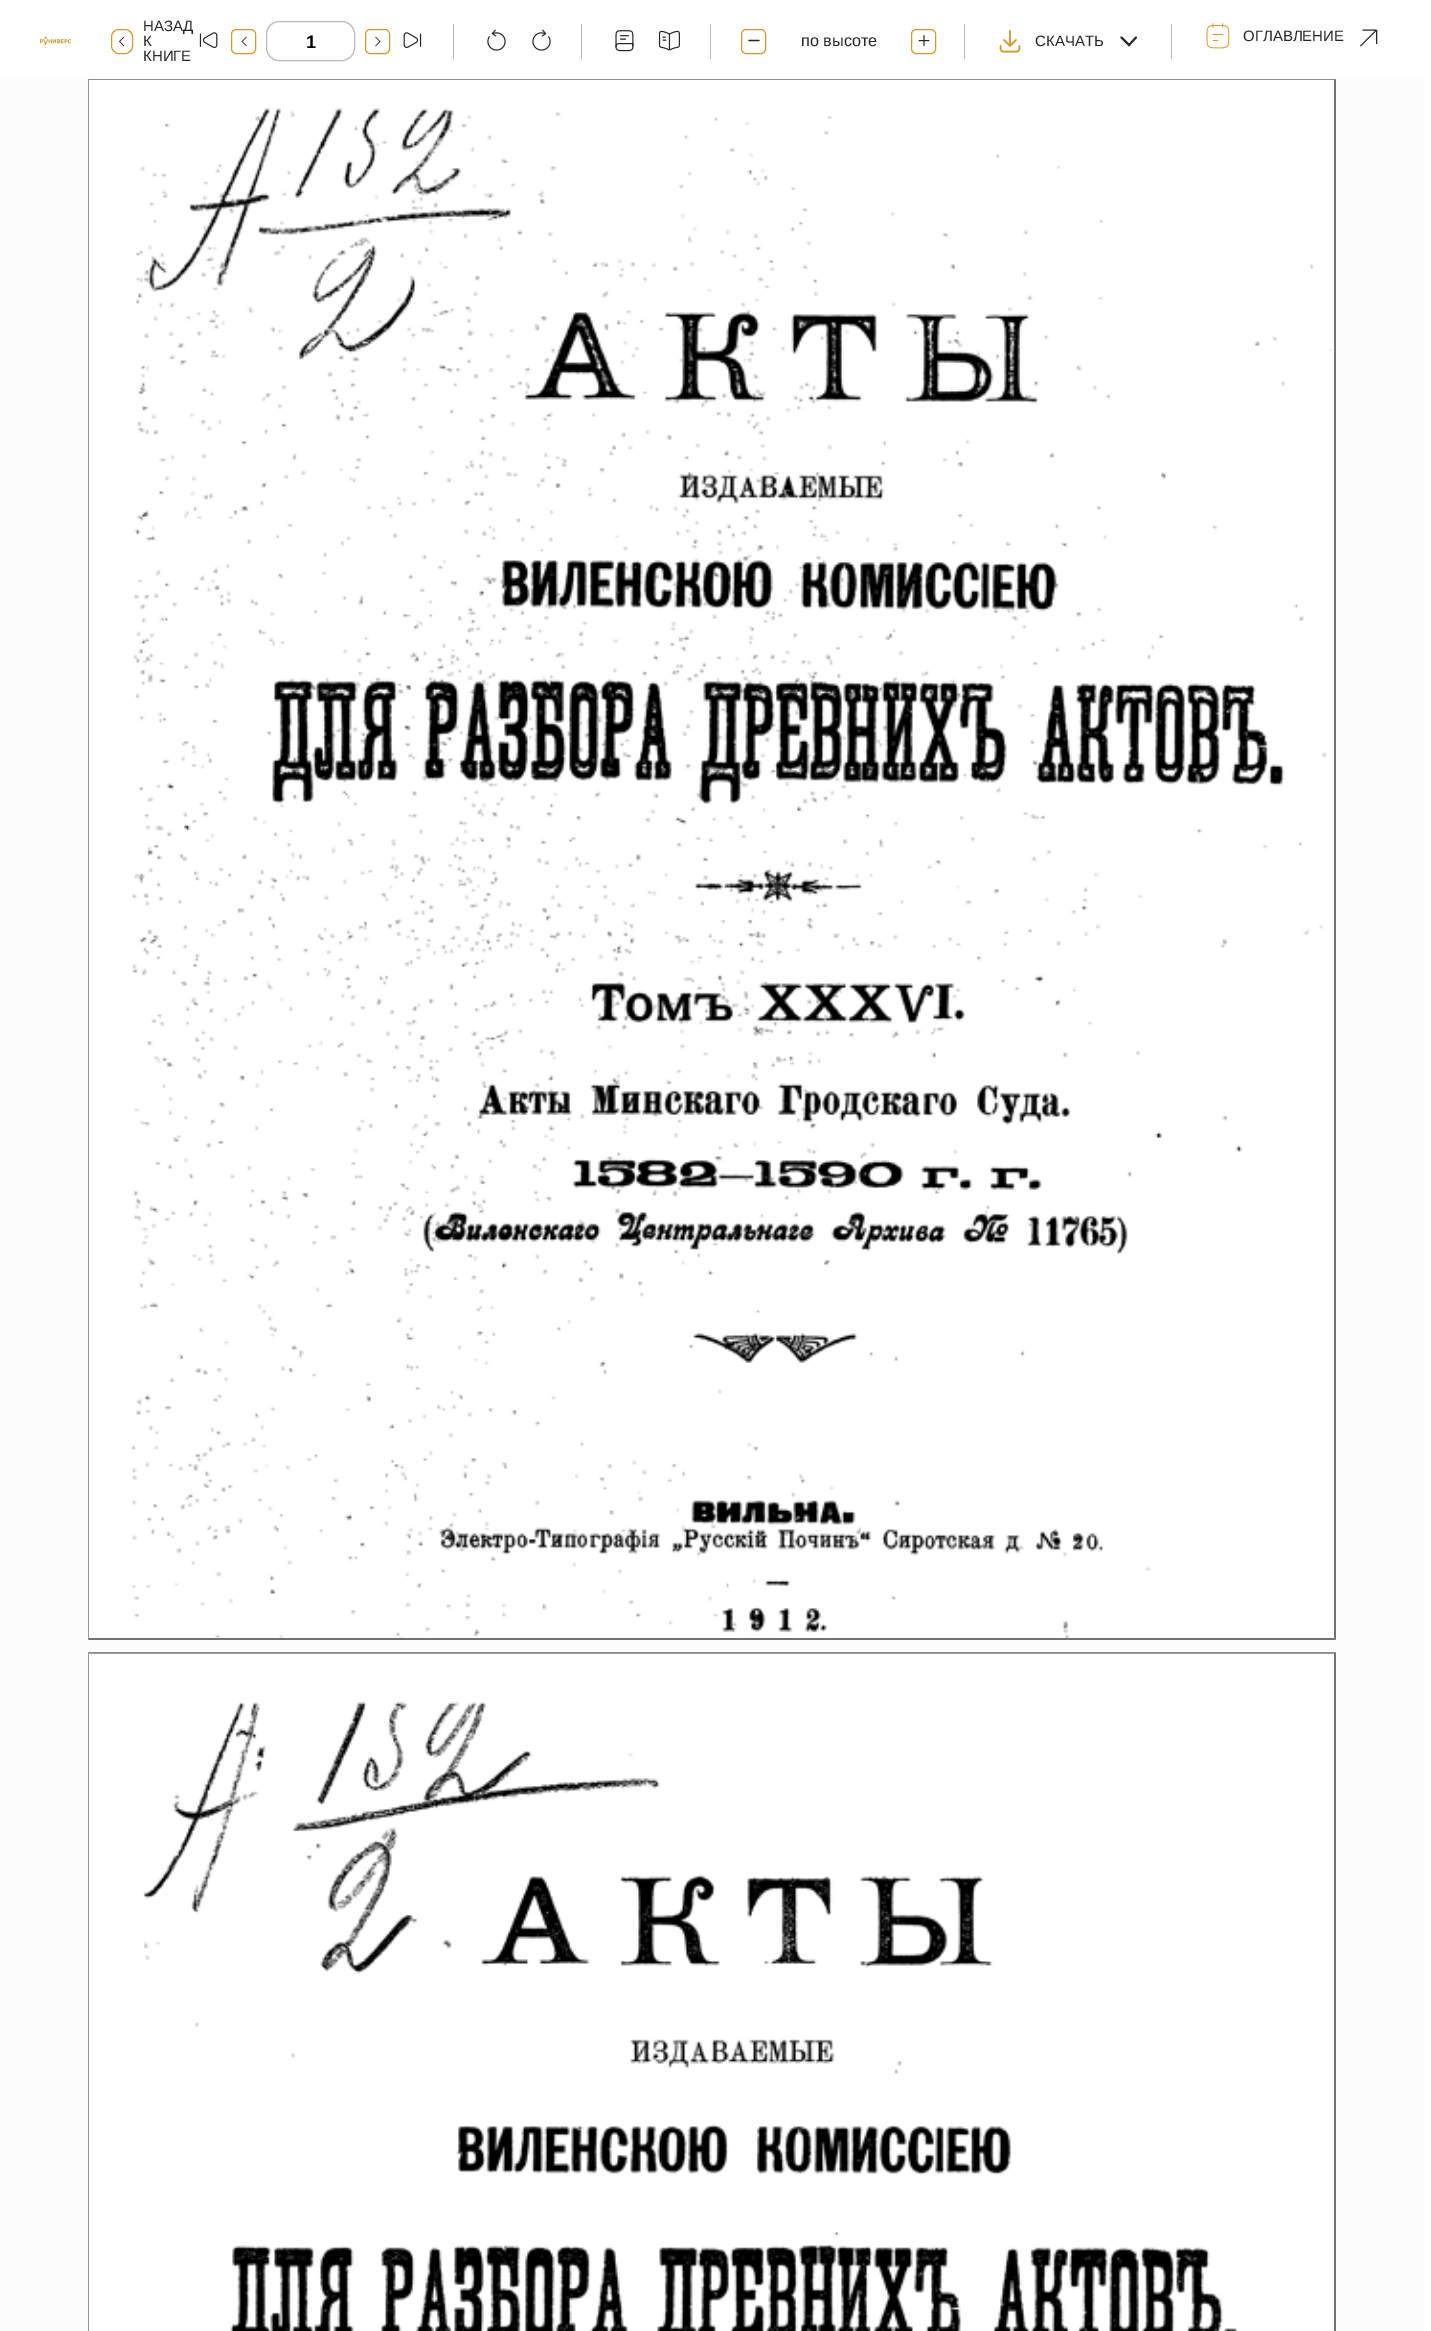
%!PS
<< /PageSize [1431 2331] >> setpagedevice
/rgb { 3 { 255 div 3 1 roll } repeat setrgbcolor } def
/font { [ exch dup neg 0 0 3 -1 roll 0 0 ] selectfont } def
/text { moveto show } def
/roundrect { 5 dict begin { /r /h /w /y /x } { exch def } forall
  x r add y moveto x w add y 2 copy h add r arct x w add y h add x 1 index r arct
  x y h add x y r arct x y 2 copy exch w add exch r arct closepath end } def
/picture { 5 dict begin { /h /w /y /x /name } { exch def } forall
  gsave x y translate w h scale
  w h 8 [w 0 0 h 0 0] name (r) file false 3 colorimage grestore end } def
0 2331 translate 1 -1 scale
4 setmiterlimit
255 255 255 rgb
0 0 1431 2331 rectfill
(img_01.rgb) 40 36 31 10 picture
211 154 41 rgb
111.5 29.5 21 24 7.5 roundrect stroke
37 37 37 rgb
0.7 setlinewidth
124 46 moveto -4.5 -4.5 rlineto 4.5 -4.5 rlineto stroke
(img_02.rgb) 199 32 19 16 picture
211 154 41 rgb
1 setlinewidth
231.5 29.5 24 24 4.5 roundrect stroke
37 37 37 rgb
0.7 setlinewidth
246.5 46 moveto -4.5 -4.5 rlineto 4.5 -4.5 rlineto stroke
185 185 185 rgb
1 setlinewidth
266.5 21.5 88 39 12.5 roundrect stroke
211 154 41 rgb
365.5 29.5 24 24 4.5 roundrect stroke
37 37 37 rgb
0.7 setlinewidth
375.5 37 moveto 4.5 4.5 rlineto -4.5 4.5 rlineto stroke
(img_03.rgb) 403 32 19 16 picture
185 185 185 rgb
453 24 1 35 rectfill
(img_04.rgb) 487 29 19 22 picture
(img_05.rgb) 532 29 19 22 picture
581 24 1 35 rectfill
(img_06.rgb) 615 30 19 22 picture
(img_07.rgb) 658 30 22 21 picture
710 24 1 35 rectfill
211 154 41 rgb
1 setlinewidth
741.5 29.5 24 24 4.5 roundrect stroke
37 37 37 rgb
1.2 setlinewidth
1 setlinecap
1 setlinejoin
759 40.5 moveto -10 0 rlineto stroke
211 154 41 rgb
1 setlinewidth
0 setlinecap
0 setlinejoin
911.5 29.5 24 24 4.5 roundrect stroke
(img_08.rgb) 918 35 12 11 picture
185 185 185 rgb
964 24 1 35 rectfill
(img_09.rgb) 999 30 22 23 picture
37 37 37 rgb
1.9 setlinewidth
1 setlinecap
1121.5 37.5 moveto 7.5 7.5 rlineto 7 -7.5 rlineto stroke
185 185 185 rgb
1171 24 1 35 rectfill
(img_10.rgb) 1206 23 24 26 picture
37 37 37 rgb
0.9 setlinewidth
0 setlinecap
1376.5 44 moveto 0 -14 rlineto 1376.5 30 moveto -14 0 rlineto 1376.5 30 moveto -16 16 rlineto stroke
252 252 252 rgb
0 79 1424 2252 rectfill
255 255 255 rgb
89 80 1245 1558 rectfill
144 144 144 rgb
88 79 moveto 1248 0 rlineto -2 1 rlineto -1245 0 rlineto closepath fill
113 113 113 rgb
1336 79 moveto 0 1561 rlineto -2 -2 rlineto 0 -1558 rlineto closepath fill
1336 1640 moveto -1248 0 rlineto 1 -2 rlineto 1245 0 rlineto closepath fill
144 144 144 rgb
88 1640 moveto 0 -1561 rlineto 1 1 rlineto 0 1558 rlineto closepath fill
(img_11.rgb) 88 80 1245 1558 picture
255 255 255 rgb
1333 1654 1 677 rectfill
144 144 144 rgb
88 1652 moveto 1248 0 rlineto -2 2 rlineto -1245 0 rlineto closepath fill
113 113 113 rgb
1336 1652 moveto 0 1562 rlineto -2 -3 rlineto 0 -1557 rlineto closepath fill
144 144 144 rgb
88 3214 moveto 0 -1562 rlineto 1 2 rlineto 0 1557 rlineto closepath fill
(img_12.rgb) 88 1653 1245 678 picture
/LiberationSans-Regular 15 font
37 37 37 rgb
(НАЗАД) 143 31 text
(К) 143 46 text
(КНИГЕ) 143 61 text
/LiberationSans-Bold 18 font
0 0 0 rgb
(1) 306 48 text
/LiberationSans-Regular 16.25 font
37 37 37 rgb
(по высоте) 801 46 text
/LiberationSans-Regular 15 font
(СКАЧАТЬ) 1035 46 text
(ОГЛАВЛЕНИЕ) 1243 41 text
showpage
